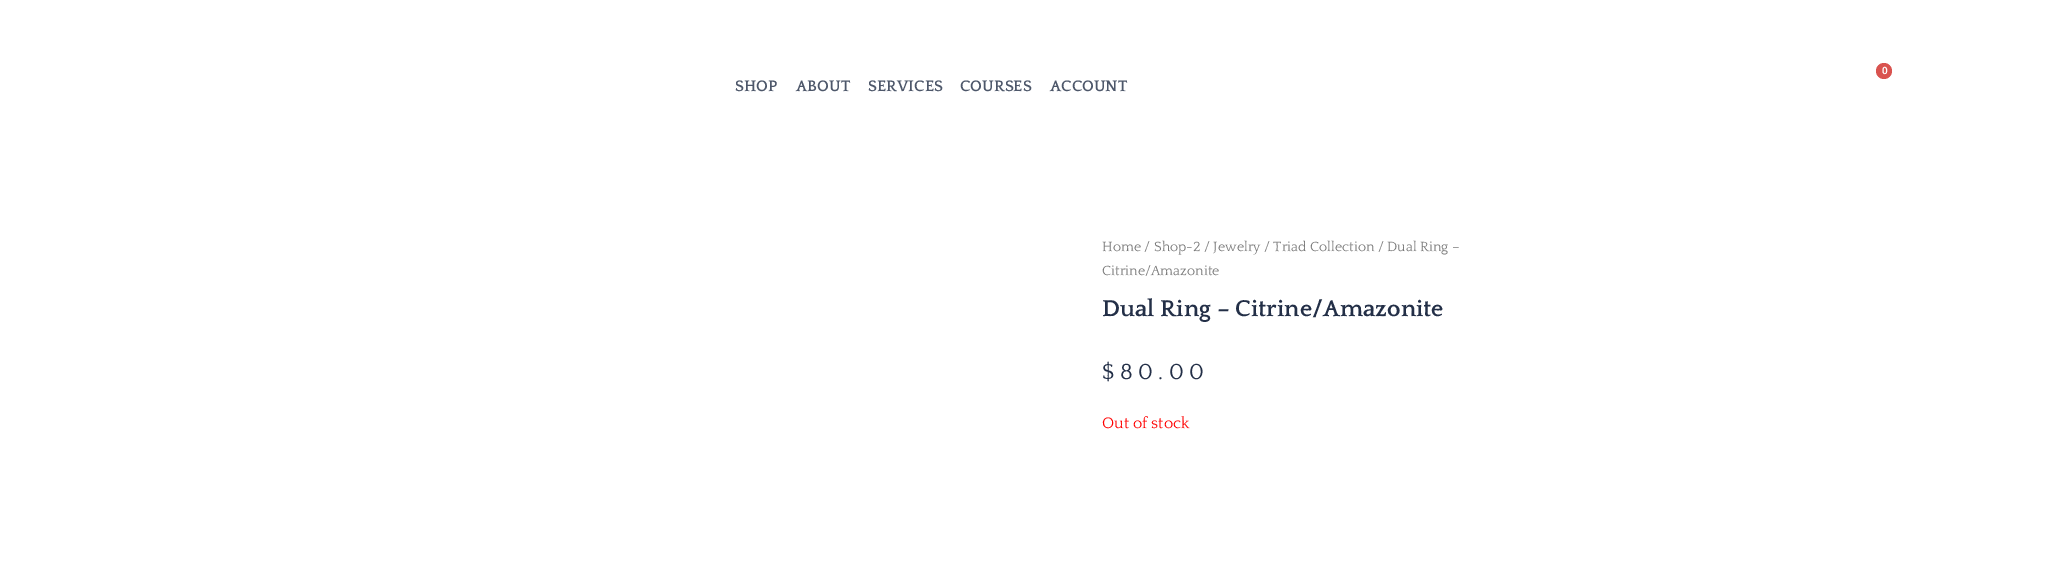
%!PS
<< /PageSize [2063 561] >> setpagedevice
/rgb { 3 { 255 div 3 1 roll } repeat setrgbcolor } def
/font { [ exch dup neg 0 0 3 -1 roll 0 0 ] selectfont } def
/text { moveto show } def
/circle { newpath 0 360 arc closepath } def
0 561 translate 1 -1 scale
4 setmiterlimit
255 255 255 rgb
0 0 2063 561 rectfill
217 83 79 rgb
1884 71 8 circle fill
/Roboto-SemiBold 10 font
255 255 255 rgb
(0) 1882 74 text
/Quattrocento-Bold 16 font
77 87 106 rgb
(SHOP) 735 91 text
(ABOUT) 796 91 text
(SERVICES) 868 91 text
(COURSES) 960 91 text
(ACCOUNT) 1050 91 text
/Quattrocento-Regular 14 font
122 122 122 rgb
(Home / Shop-2 / Jewelry / Triad Collection / Dual Ring –) 1102 251 text
(Citrine/Amazonite) 1102 275 text
/Quattrocento-Bold 24 font
35 47 71 rgb
(Dual Ring – Citrine/Amazonite) 1102 316 text
/Quattrocento-Regular 23 font
1102 379 moveto 5.5 0 ($80.00) ashow
/Quattrocento-Regular 16 font
255 0 0 rgb
(Out of stock) 1102 428 text
showpage
